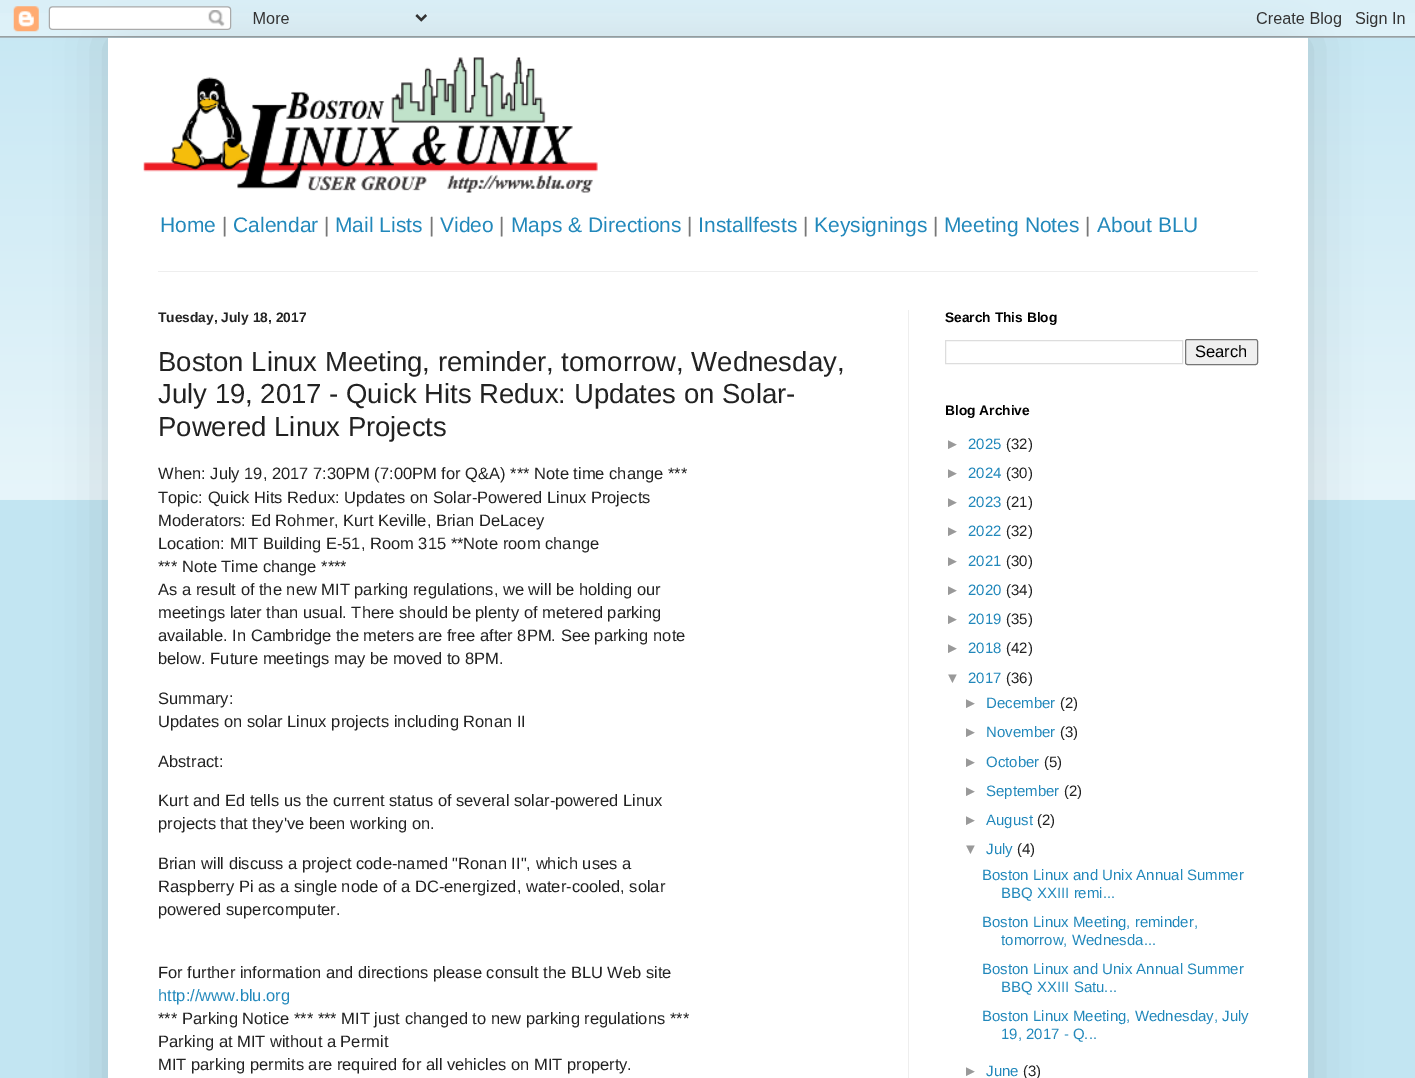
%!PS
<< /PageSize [1415 1078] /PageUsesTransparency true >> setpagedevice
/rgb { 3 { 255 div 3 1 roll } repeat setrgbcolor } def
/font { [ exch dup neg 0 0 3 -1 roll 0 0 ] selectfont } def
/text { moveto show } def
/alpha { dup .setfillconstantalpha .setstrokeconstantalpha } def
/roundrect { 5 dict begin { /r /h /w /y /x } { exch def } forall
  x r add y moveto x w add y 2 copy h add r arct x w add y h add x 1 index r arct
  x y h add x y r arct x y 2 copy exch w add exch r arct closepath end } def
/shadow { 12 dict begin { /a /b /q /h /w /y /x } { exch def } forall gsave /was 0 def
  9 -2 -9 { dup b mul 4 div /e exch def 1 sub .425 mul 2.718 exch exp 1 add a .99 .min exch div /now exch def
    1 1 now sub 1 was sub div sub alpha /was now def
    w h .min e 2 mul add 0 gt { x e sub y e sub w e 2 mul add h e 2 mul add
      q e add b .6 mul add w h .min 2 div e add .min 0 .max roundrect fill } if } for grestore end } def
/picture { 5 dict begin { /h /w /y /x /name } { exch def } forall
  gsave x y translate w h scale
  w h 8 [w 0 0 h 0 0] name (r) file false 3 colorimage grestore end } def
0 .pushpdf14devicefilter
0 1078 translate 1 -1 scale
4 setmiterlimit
194 229 242 rgb
0 0 1415 1078 rectfill
(img_02.rgb) 0 13 1415 487 picture
0 0 0 rgb
108 38 1200 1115 0 25 0.15 shadow
(img_01.rgb) 0 0 1415 38 picture
255 255 255 rgb
108 38 1200 1040 rectfill
(img_03.rgb) 143 57 455 136 picture
238 238 238 rgb
158 271 1100 1 rectfill
908 310 1 768 rectfill
221 221 221 rgb
945.5 340.5 237 23 rectstroke
239 239 239 rgb
1185.5 339.5 72 25 2 roundrect gsave fill grestore
118 118 118 rgb
stroke
/LiberationSans-Regular 21 font
34 136 187 rgb
(Home) 160 232 text
119 119 119 rgb
(|) 222 232 text
34 136 187 rgb
(Calendar) 233 232 text
119 119 119 rgb
(|) 324 232 text
34 136 187 rgb
(Mail Lists) 335 232 text
119 119 119 rgb
(|) 429 232 text
34 136 187 rgb
(Video) 440 232 text
119 119 119 rgb
(|) 499 232 text
34 136 187 rgb
(Maps & Directions) 511 232 text
119 119 119 rgb
(|) 687 232 text
34 136 187 rgb
(Installfests) 698 232 text
119 119 119 rgb
(|) 803 232 text
34 136 187 rgb
(Keysignings) 814 232 text
119 119 119 rgb
(|) 933 232 text
34 136 187 rgb
(Meeting Notes) 944 232 text
119 119 119 rgb
(|) 1085 232 text
34 136 187 rgb
(About BLU) 1097 232 text
/LiberationSans-Bold 13.75 font
34 34 34 rgb
(Tuesday, July 18, 2017) 158 322 text
/LiberationSans-Regular 27.5 font
(Boston Linux Meeting, reminder, tomorrow, Wednesday,) 158 371 text
(July 19, 2017 - Quick Hits Redux: Updates on Solar-) 158 403 text
(Powered Linux Projects) 158 436 text
/LiberationSans-Regular 16.5 font
(When: July 19, 2017 7:30PM \(7:00PM for Q&A\) *** Note time change ***) 158 479 text
(Topic: Quick Hits Redux: Updates on Solar-Powered Linux Projects) 158 503 text
(Moderators: Ed Rohmer, Kurt Keville, Brian DeLacey) 158 526 text
(Location: MIT Building E-51, Room 315 **Note room change) 158 549 text
(*** Note Time change ****) 158 572 text
(As a result of the new MIT parking regulations, we will be holding our) 158 595 text
(meetings later than usual. There should be plenty of metered parking) 158 618 text
(available. In Cambridge the meters are free after 8PM. See parking note) 158 641 text
(below. Future meetings may be moved to 8PM.) 158 664 text
(Summary:) 158 704 text
(Updates on solar Linux projects including Ronan II) 158 727 text
(Abstract:) 158 767 text
(Kurt and Ed tells us the current status of several solar-powered Linux) 158 806 text
(projects that they've been working on.) 158 829 text
(Brian will discuss a project code-named "Ronan II", which uses a) 158 869 text
(Raspberry Pi as a single node of a DC-energized, water-cooled, solar) 158 892 text
(powered supercomputer.) 158 915 text
(For further information and directions please consult the BLU Web site) 158 978 text
34 136 187 rgb
(http://www.blu.org) 158 1001 text
34 34 34 rgb
(*** Parking Notice *** *** MIT just changed to new parking regulations ***) 158 1024 text
(Parking at MIT without a Permit) 158 1047 text
(MIT parking permits are required for all vehicles on MIT property.) 158 1070 text
/LiberationSans-Bold 13.75 font
0 0 0 rgb
(Search This Blog) 945 322 text
/LiberationSans-Regular 16.5 font
(Search) 1195 357 text
/LiberationSans-Bold 13.75 font
(Blog Archive) 945 415 text
/LiberationSans-Regular 15 font
153 153 153 rgb
(►) 945 449 text
34 136 187 rgb
(2025) 968 449 text
34 34 34 rgb
(\(32\)) 1006 449 text
153 153 153 rgb
(►) 945 478 text
34 136 187 rgb
(2024) 968 478 text
34 34 34 rgb
(\(30\)) 1006 478 text
153 153 153 rgb
(►) 945 507 text
34 136 187 rgb
(2023) 968 507 text
34 34 34 rgb
(\(21\)) 1006 507 text
153 153 153 rgb
(►) 945 536 text
34 136 187 rgb
(2022) 968 536 text
34 34 34 rgb
(\(32\)) 1006 536 text
153 153 153 rgb
(►) 945 566 text
34 136 187 rgb
(2021) 968 566 text
34 34 34 rgb
(\(30\)) 1006 566 text
153 153 153 rgb
(►) 945 595 text
34 136 187 rgb
(2020) 968 595 text
34 34 34 rgb
(\(34\)) 1006 595 text
153 153 153 rgb
(►) 945 624 text
34 136 187 rgb
(2019) 968 624 text
34 34 34 rgb
(\(35\)) 1006 624 text
153 153 153 rgb
(►) 945 653 text
34 136 187 rgb
(2018) 968 653 text
34 34 34 rgb
(\(42\)) 1006 653 text
153 153 153 rgb
(▼) 945 683 text
34 136 187 rgb
(2017) 968 683 text
34 34 34 rgb
(\(36\)) 1006 683 text
153 153 153 rgb
(►) 963 708 text
34 136 187 rgb
(December) 986 708 text
34 34 34 rgb
(\(2\)) 1060 708 text
153 153 153 rgb
(►) 963 737 text
34 136 187 rgb
(November) 986 737 text
34 34 34 rgb
(\(3\)) 1060 737 text
153 153 153 rgb
(►) 963 767 text
34 136 187 rgb
(October) 986 767 text
34 34 34 rgb
(\(5\)) 1044 767 text
153 153 153 rgb
(►) 963 796 text
34 136 187 rgb
(September) 986 796 text
34 34 34 rgb
(\(2\)) 1064 796 text
153 153 153 rgb
(►) 963 825 text
34 136 187 rgb
(August) 986 825 text
34 34 34 rgb
(\(2\)) 1037 825 text
153 153 153 rgb
(▼) 963 854 text
34 136 187 rgb
(July) 986 854 text
34 34 34 rgb
(\(4\)) 1017 854 text
34 136 187 rgb
(Boston Linux and Unix Annual Summer) 982 880 text
(BBQ XXIII remi...) 1001 898 text
(Boston Linux Meeting, reminder,) 982 927 text
(tomorrow, Wednesda...) 1001 945 text
(Boston Linux and Unix Annual Summer) 982 974 text
(BBQ XXIII Satu...) 1001 992 text
(Boston Linux Meeting, Wednesday, July) 982 1021 text
(19, 2017 - Q...) 1001 1039 text
153 153 153 rgb
(►) 963 1076 text
34 136 187 rgb
(June) 986 1076 text
34 34 34 rgb
(\(3\)) 1023 1076 text
.poppdf14devicefilter showpage
